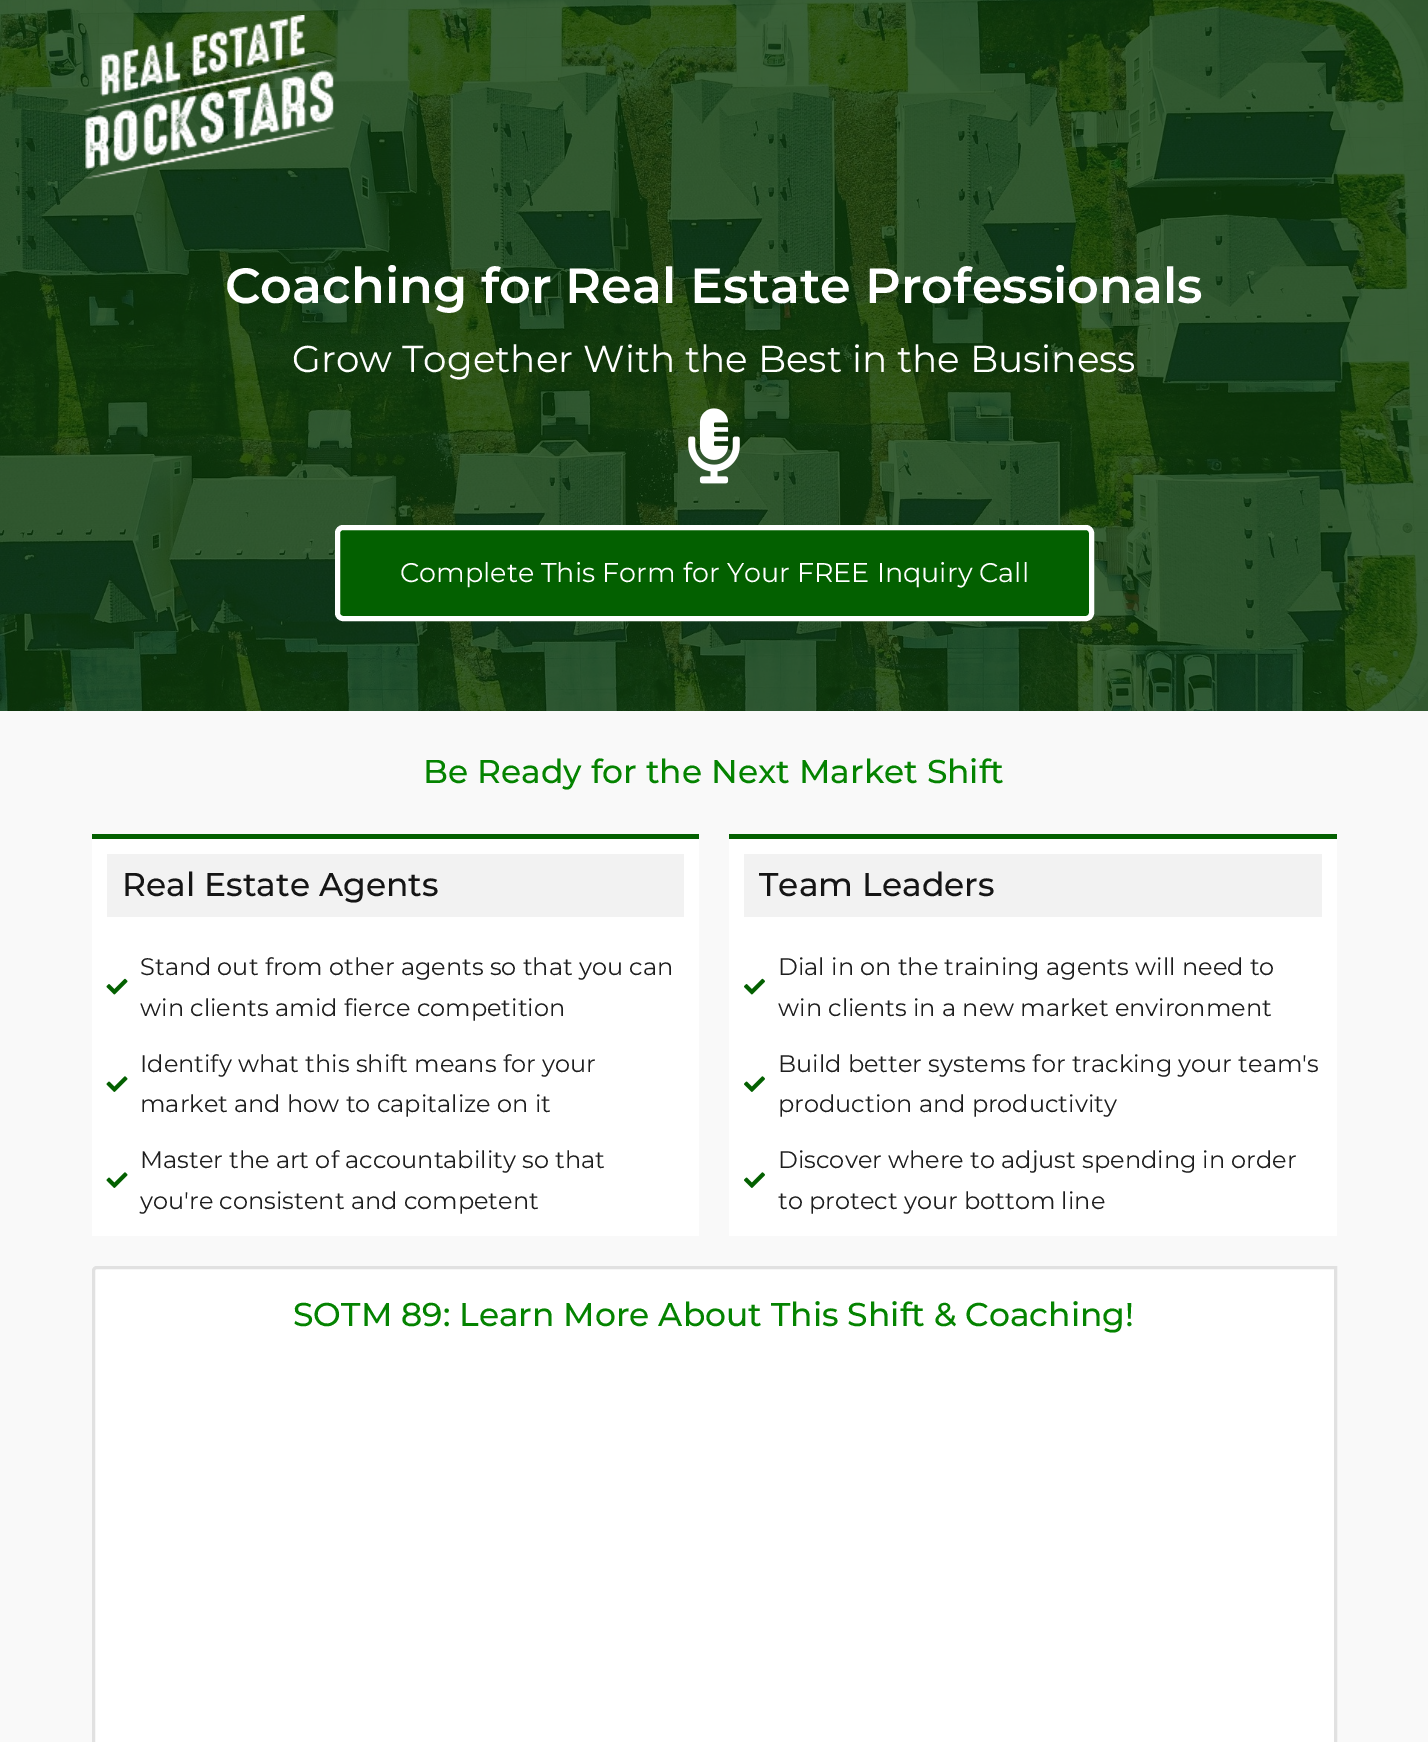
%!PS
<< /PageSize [1428 1742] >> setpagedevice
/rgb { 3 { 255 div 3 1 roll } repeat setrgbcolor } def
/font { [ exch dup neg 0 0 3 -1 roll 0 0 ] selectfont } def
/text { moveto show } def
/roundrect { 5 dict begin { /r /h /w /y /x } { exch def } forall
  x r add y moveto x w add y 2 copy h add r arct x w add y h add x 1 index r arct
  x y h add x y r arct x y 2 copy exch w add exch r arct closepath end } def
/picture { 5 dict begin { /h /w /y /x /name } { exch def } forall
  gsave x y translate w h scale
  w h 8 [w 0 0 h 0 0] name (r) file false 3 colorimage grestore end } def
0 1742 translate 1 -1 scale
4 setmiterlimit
249 249 249 rgb
0 0 1428 1742 rectfill
(img_01.rgb) 0 0 1428 711 picture
(img_02.rgb) 84 15 251 164 picture
(img_03.rgb) 688 408 52 76 picture
3 96 0 rgb
337.5 527.5 754 91 5.5 roundrect gsave fill grestore
255 255 255 rgb
5 setlinewidth
stroke
92 839 607 397 rectfill
3 96 0 rgb
92 834 607 5 rectfill
242 242 242 rgb
107 854 577 63 rectfill
(img_04.rgb) 106 978 22 17 picture
(img_05.rgb) 106 1076 22 16 picture
(img_05.rgb) 106 1172 22 16 picture
255 255 255 rgb
729 839 608 397 rectfill
3 96 0 rgb
729 834 608 5 rectfill
242 242 242 rgb
744 854 578 63 rectfill
(img_06.rgb) 744 978 21 17 picture
(img_07.rgb) 744 1076 21 16 picture
(img_07.rgb) 744 1172 21 16 picture
255 255 255 rgb
97 1267.5 moveto 1238.5 0 rlineto 0 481 rlineto -1242 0 rlineto 0 -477.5 rlineto 0 -2 1.5 -3.5 3.5 -3.5 rcurveto closepath gsave fill grestore
225 225 225 rgb
3 setlinewidth
stroke
/Montserrat-SemiBold 49.4 font
255 255 255 rgb
(Coaching for Real Estate Professionals) 225 303 text
/Montserrat-Regular 37.4 font
(Grow Together With the Best in the Business) 292 372 text
/Montserrat-Regular 27 font
(Complete This Form for Your FREE Inquiry Call) 400 582 text
/Montserrat-Medium 33 font
4 131 0 rgb
(Be Ready for the Next Market Shift) 423 783 text
21 21 21 rgb
(Real Estate Agents) 122 896 text
/Montserrat-Regular 24 font
30 30 30 rgb
(Stand out from other agents so that you can) 140 975 text
(win clients amid fierce competition) 140 1016 text
(Identify what this shift means for your) 140 1072 text
(market and how to capitalize on it) 140 1112 text
(Master the art of accountability so that) 140 1168 text
(you're consistent and competent) 140 1209 text
/Montserrat-Medium 33 font
21 21 21 rgb
(Team Leaders) 759 896 text
/Montserrat-Regular 24 font
30 30 30 rgb
(Dial in on the training agents will need to) 778 975 text
(win clients in a new market environment) 778 1016 text
(Build better systems for tracking your team's) 778 1072 text
(production and productivity) 778 1112 text
(Discover where to adjust spending in order) 778 1168 text
(to protect your bottom line) 778 1209 text
/Montserrat-Medium 33 font
4 131 0 rgb
(SOTM 89: Learn More About This Shift & Coaching!) 293 1326 text
showpage
